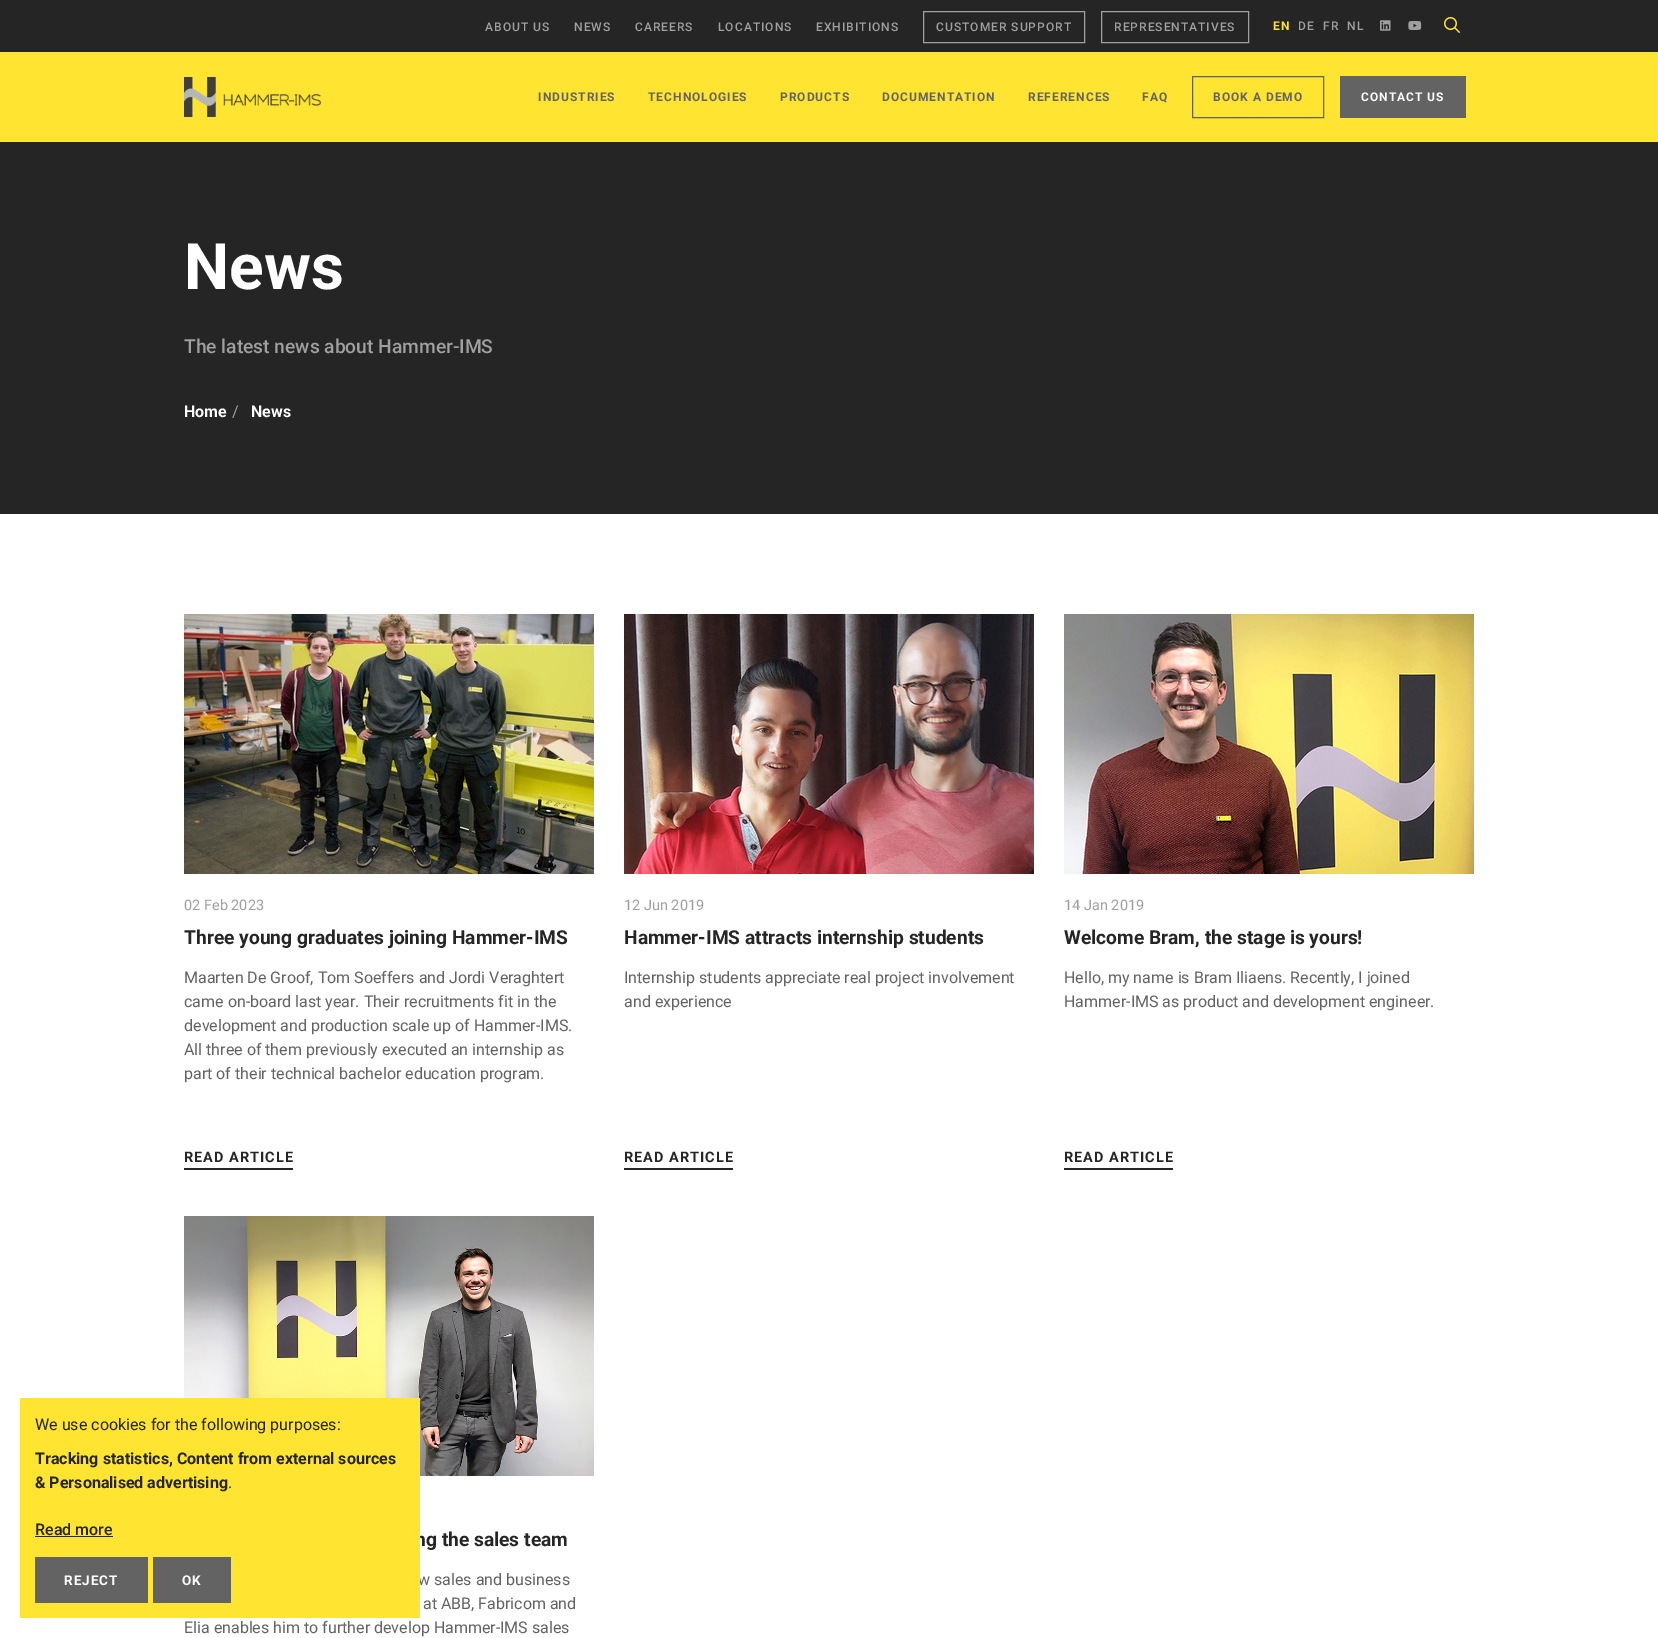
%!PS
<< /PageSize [1658 1638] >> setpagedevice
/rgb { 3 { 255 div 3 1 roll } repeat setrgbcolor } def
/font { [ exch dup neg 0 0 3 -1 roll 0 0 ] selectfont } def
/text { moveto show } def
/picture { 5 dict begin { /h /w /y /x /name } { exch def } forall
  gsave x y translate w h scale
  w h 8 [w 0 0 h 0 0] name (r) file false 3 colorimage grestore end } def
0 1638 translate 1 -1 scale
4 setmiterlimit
255 255 255 rgb
0 0 1658 1638 rectfill
255 228 49 rgb
0 52 1658 90 rectfill
37 37 37 rgb
0 0 1658 52 rectfill
160 160 160 rgb
923.5 11.5 161 31 rectstroke
1101.5 11.5 147 31 rectstroke
(img_01.rgb) 1380 20 11 11 picture
(img_02.rgb) 1408 21 14 9 picture
(img_03.rgb) 1444 17 16 16 picture
(img_04.rgb) 184 77 138 40 picture
99 99 99 rgb
1192.5 76.5 131 41 rectstroke
1340 76 126 42 rectfill
37 37 37 rgb
0 142 1658 372 rectfill
(img_05.rgb) 184 614 410 260 picture
184 1168 109 2 rectfill
(img_06.rgb) 624 614 410 260 picture
624 1168 109 2 rectfill
(img_07.rgb) 1064 614 410 260 picture
1064 1168 109 2 rectfill
(img_08.rgb) 184 1216 410 260 picture
/Roboto-Medium 12 font
160 160 160 rgb
485 31 moveto 1 0 (ABOUT US) ashow
574 31 moveto 1 0 (NEWS) ashow
635 31 moveto 1 0 (CAREERS) ashow
718 31 moveto 1 0 (LOCATIONS) ashow
816 31 moveto 1 0 (EXHIBITIONS) ashow
936 31 moveto 1 0 (CUSTOMER SUPPORT) ashow
1114 31 moveto 1 0 (REPRESENTATIVES) ashow
/Roboto-Bold 12 font
255 228 49 rgb
1273 30 moveto 1 0 (EN) ashow
/Roboto-Medium 12 font
160 160 160 rgb
1298 30 moveto 1 0 (DE) ashow
1323 30 moveto 1 0 (FR) ashow
1347 30 moveto 1 0 (NL) ashow
/Roboto-Bold 12 font
99 99 99 rgb
538 101 moveto 1 0 (INDUSTRIES) ashow
648 101 moveto 1 0 (TECHNOLOGIES) ashow
780 101 moveto 1 0 (PRODUCTS) ashow
882 101 moveto 1 0 (DOCUMENTATION) ashow
1028 101 moveto 1 0 (REFERENCES) ashow
1142 101 moveto 1 0 (FAQ) ashow
1213 101 moveto 1 0 (BOOK A DEMO) ashow
255 255 255 rgb
1361 101 moveto 1 0 (CONTACT US) ashow
/Roboto-Bold 64 font
(News) 184 289 text
/Roboto-Medium 19.2 font
160 160 160 rgb
(The latest news about Hammer-IMS) 184 353 text
/Roboto-Bold 16 font
255 255 255 rgb
(Home) 184 417 text
/Roboto-Regular 16 font
160 160 160 rgb
(/) 232 417 text
/Roboto-Bold 16 font
255 255 255 rgb
(News) 251 417 text
/Roboto-Regular 14.5 font
160 160 160 rgb
(02 Feb 2023) 184 910 text
/Roboto-Bold 19.2 font
37 37 37 rgb
(Three young graduates joining Hammer-IMS) 184 944 text
/Roboto-Regular 16 font
99 99 99 rgb
(Maarten De Groof, Tom Soeffers and Jordi Veraghtert) 184 983 text
(came on-board last year. Their recruitments fit in the) 184 1007 text
(development and production scale up of Hammer-IMS.) 184 1031 text
(All three of them previously executed an internship as) 184 1055 text
(part of their technical bachelor education program.) 184 1079 text
/Roboto-Bold 14.5 font
37 37 37 rgb
184 1162 moveto 1 0 (READ ARTICLE) ashow
/Roboto-Regular 14.5 font
160 160 160 rgb
(12 Jun 2019) 624 910 text
/Roboto-Bold 19.2 font
37 37 37 rgb
(Hammer-IMS attracts internship students) 624 944 text
/Roboto-Regular 16 font
99 99 99 rgb
(Internship students appreciate real project involvement) 624 983 text
(and experience) 624 1007 text
/Roboto-Bold 14.5 font
37 37 37 rgb
624 1162 moveto 1 0 (READ ARTICLE) ashow
/Roboto-Regular 14.5 font
160 160 160 rgb
(14 Jan 2019) 1064 910 text
/Roboto-Bold 19.2 font
37 37 37 rgb
(Welcome Bram, the stage is yours!) 1064 944 text
/Roboto-Regular 16 font
99 99 99 rgb
(Hello, my name is Bram Iliaens. Recently, I joined) 1064 983 text
(Hammer-IMS as product and development engineer.) 1064 1007 text
/Roboto-Bold 14.5 font
37 37 37 rgb
1064 1162 moveto 1 0 (READ ARTICLE) ashow
/Roboto-Bold 19.2 font
(ng the sales team) 415 1546 text
/Roboto-Regular 16 font
99 99 99 rgb
(w sales and business) 418 1585 text
(at ABB, Fabricom and) 423 1609 text
(Elia enables him to further develop Hammer-IMS sales) 184 1633 text
255 228 49 rgb
20 1398 400 220 rectfill
37 37 37 rgb
(We use cookies for the following purposes:) 35 1430 text
/Roboto-Bold 16 font
(Tracking statistics, Content from external sources) 35 1464 text
(& Personalised advertising) 35 1488 text
/Roboto-Regular 16 font
(.) 228 1488 text
/Roboto-Medium 16 font
(Read more) 35 1535 text
35 1536 78 1 rectfill
99 99 99 rgb
35 1557 113 46 rectfill
/Roboto-Bold 13.5 font
255 255 255 rgb
64 1585 moveto 1 0 (REJECT) ashow
99 99 99 rgb
153 1557 78 46 rectfill
255 255 255 rgb
182 1585 moveto 1 0 (OK) ashow
showpage
